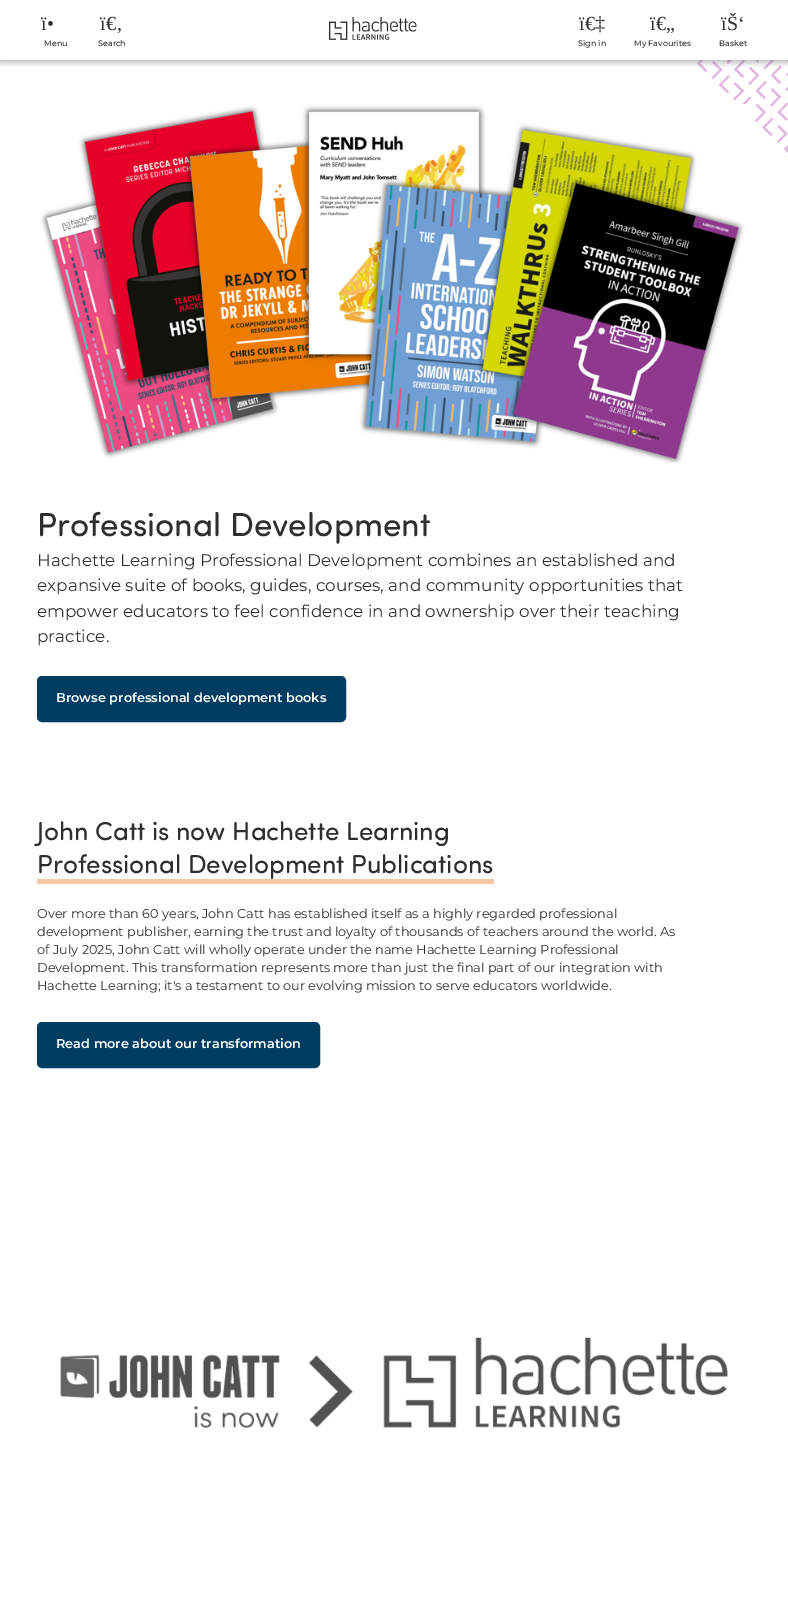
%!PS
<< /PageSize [788 1619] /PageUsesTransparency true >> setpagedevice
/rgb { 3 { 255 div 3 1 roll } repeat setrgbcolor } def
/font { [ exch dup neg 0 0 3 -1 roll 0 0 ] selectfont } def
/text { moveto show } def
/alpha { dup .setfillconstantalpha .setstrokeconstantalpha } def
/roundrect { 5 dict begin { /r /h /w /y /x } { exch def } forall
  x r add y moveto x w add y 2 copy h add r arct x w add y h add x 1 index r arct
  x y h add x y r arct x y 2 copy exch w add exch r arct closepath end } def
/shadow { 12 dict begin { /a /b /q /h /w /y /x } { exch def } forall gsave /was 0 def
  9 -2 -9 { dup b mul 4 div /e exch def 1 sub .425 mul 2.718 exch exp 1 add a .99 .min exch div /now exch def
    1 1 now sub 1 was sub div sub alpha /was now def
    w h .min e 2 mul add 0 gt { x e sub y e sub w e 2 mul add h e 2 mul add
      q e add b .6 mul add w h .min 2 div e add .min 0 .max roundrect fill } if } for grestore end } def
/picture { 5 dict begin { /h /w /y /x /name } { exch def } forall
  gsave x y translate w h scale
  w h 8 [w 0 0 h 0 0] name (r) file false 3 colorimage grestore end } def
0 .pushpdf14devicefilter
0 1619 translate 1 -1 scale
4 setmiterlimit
255 255 255 rgb
0 0 788 1619 rectfill
(img_02.rgb) 697 60 91 93 picture
gsave
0 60 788 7 rectclip
0 0 0 rgb
0 3 788 60 0 3 0.25 shadow
grestore
(img_01.rgb) 329 17 88 23 picture
(img_03.rgb) 40 104 711 359 picture
0 61 97 rgb
38 677 307 44 4 roundrect gsave fill grestore
2 setlinewidth
stroke
245 199 166 rgb
37 879 457 5 rectfill
0 61 97 rgb
38 1023 281 44 4 roundrect gsave fill grestore
stroke
(img_04.rgb) 60 1337 668 92 picture
/LiberationSerif-Regular 20 font
46 46 46 rgb
(ï•) 41 30 text
/Montserrat-Medium 8 font
(Menu) 44 46 text
/LiberationSerif-Regular 20 font
(ï€‚) 100 30 text
/Montserrat-Medium 8 font
(Search) 98 46 text
/LiberationSerif-Regular 20 font
(ï€‡) 579 30 text
/Montserrat-Medium 8 font
(Sign in) 578 46 text
/LiberationSerif-Regular 20 font
(ï€„) 650 30 text
/Montserrat-Medium 8 font
(My Favourites) 634 46 text
/LiberationSerif-Regular 20 font
(ïŠ‘) 721 30 text
/Montserrat-Medium 8 font
(Basket) 719 46 text
/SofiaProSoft-Regular 33.25 font
(Professional Development) 37 536 text
/Montserrat-Regular 16.85 font
(Hachette Learning Professional Development combines an established and) 37 566 text
(expansive suite of books, guides, courses, and community opportunities that) 37 591 text
(empower educators to feel confidence in and ownership over their teaching) 37 617 text
(practice.) 37 642 text
/Montserrat-SemiBold 12.85 font
255 255 255 rgb
(Browse professional development books) 56 702 text
/SofiaProSoft-Regular 26 font
46 46 46 rgb
(John Catt is now Hachette Learning) 37 840 text
(Professional Development Publications) 37 873 text
/Montserrat-Regular 12.85 font
(Over more than 60 years, John Catt has established itself as a highly regarded professional) 37 918 text
(development publisher, earning the trust and loyalty of thousands of teachers around the world. As) 37 936 text
(of July 2025, John Catt will wholly operate under the name Hachette Learning Professional) 37 954 text
(Development. This transformation represents more than just the final part of our integration with) 37 972 text
(Hachette Learning; it's a testament to our evolving mission to serve educators worldwide.) 37 990 text
/Montserrat-SemiBold 12.85 font
255 255 255 rgb
(Read more about our transformation) 56 1048 text
.poppdf14devicefilter showpage
